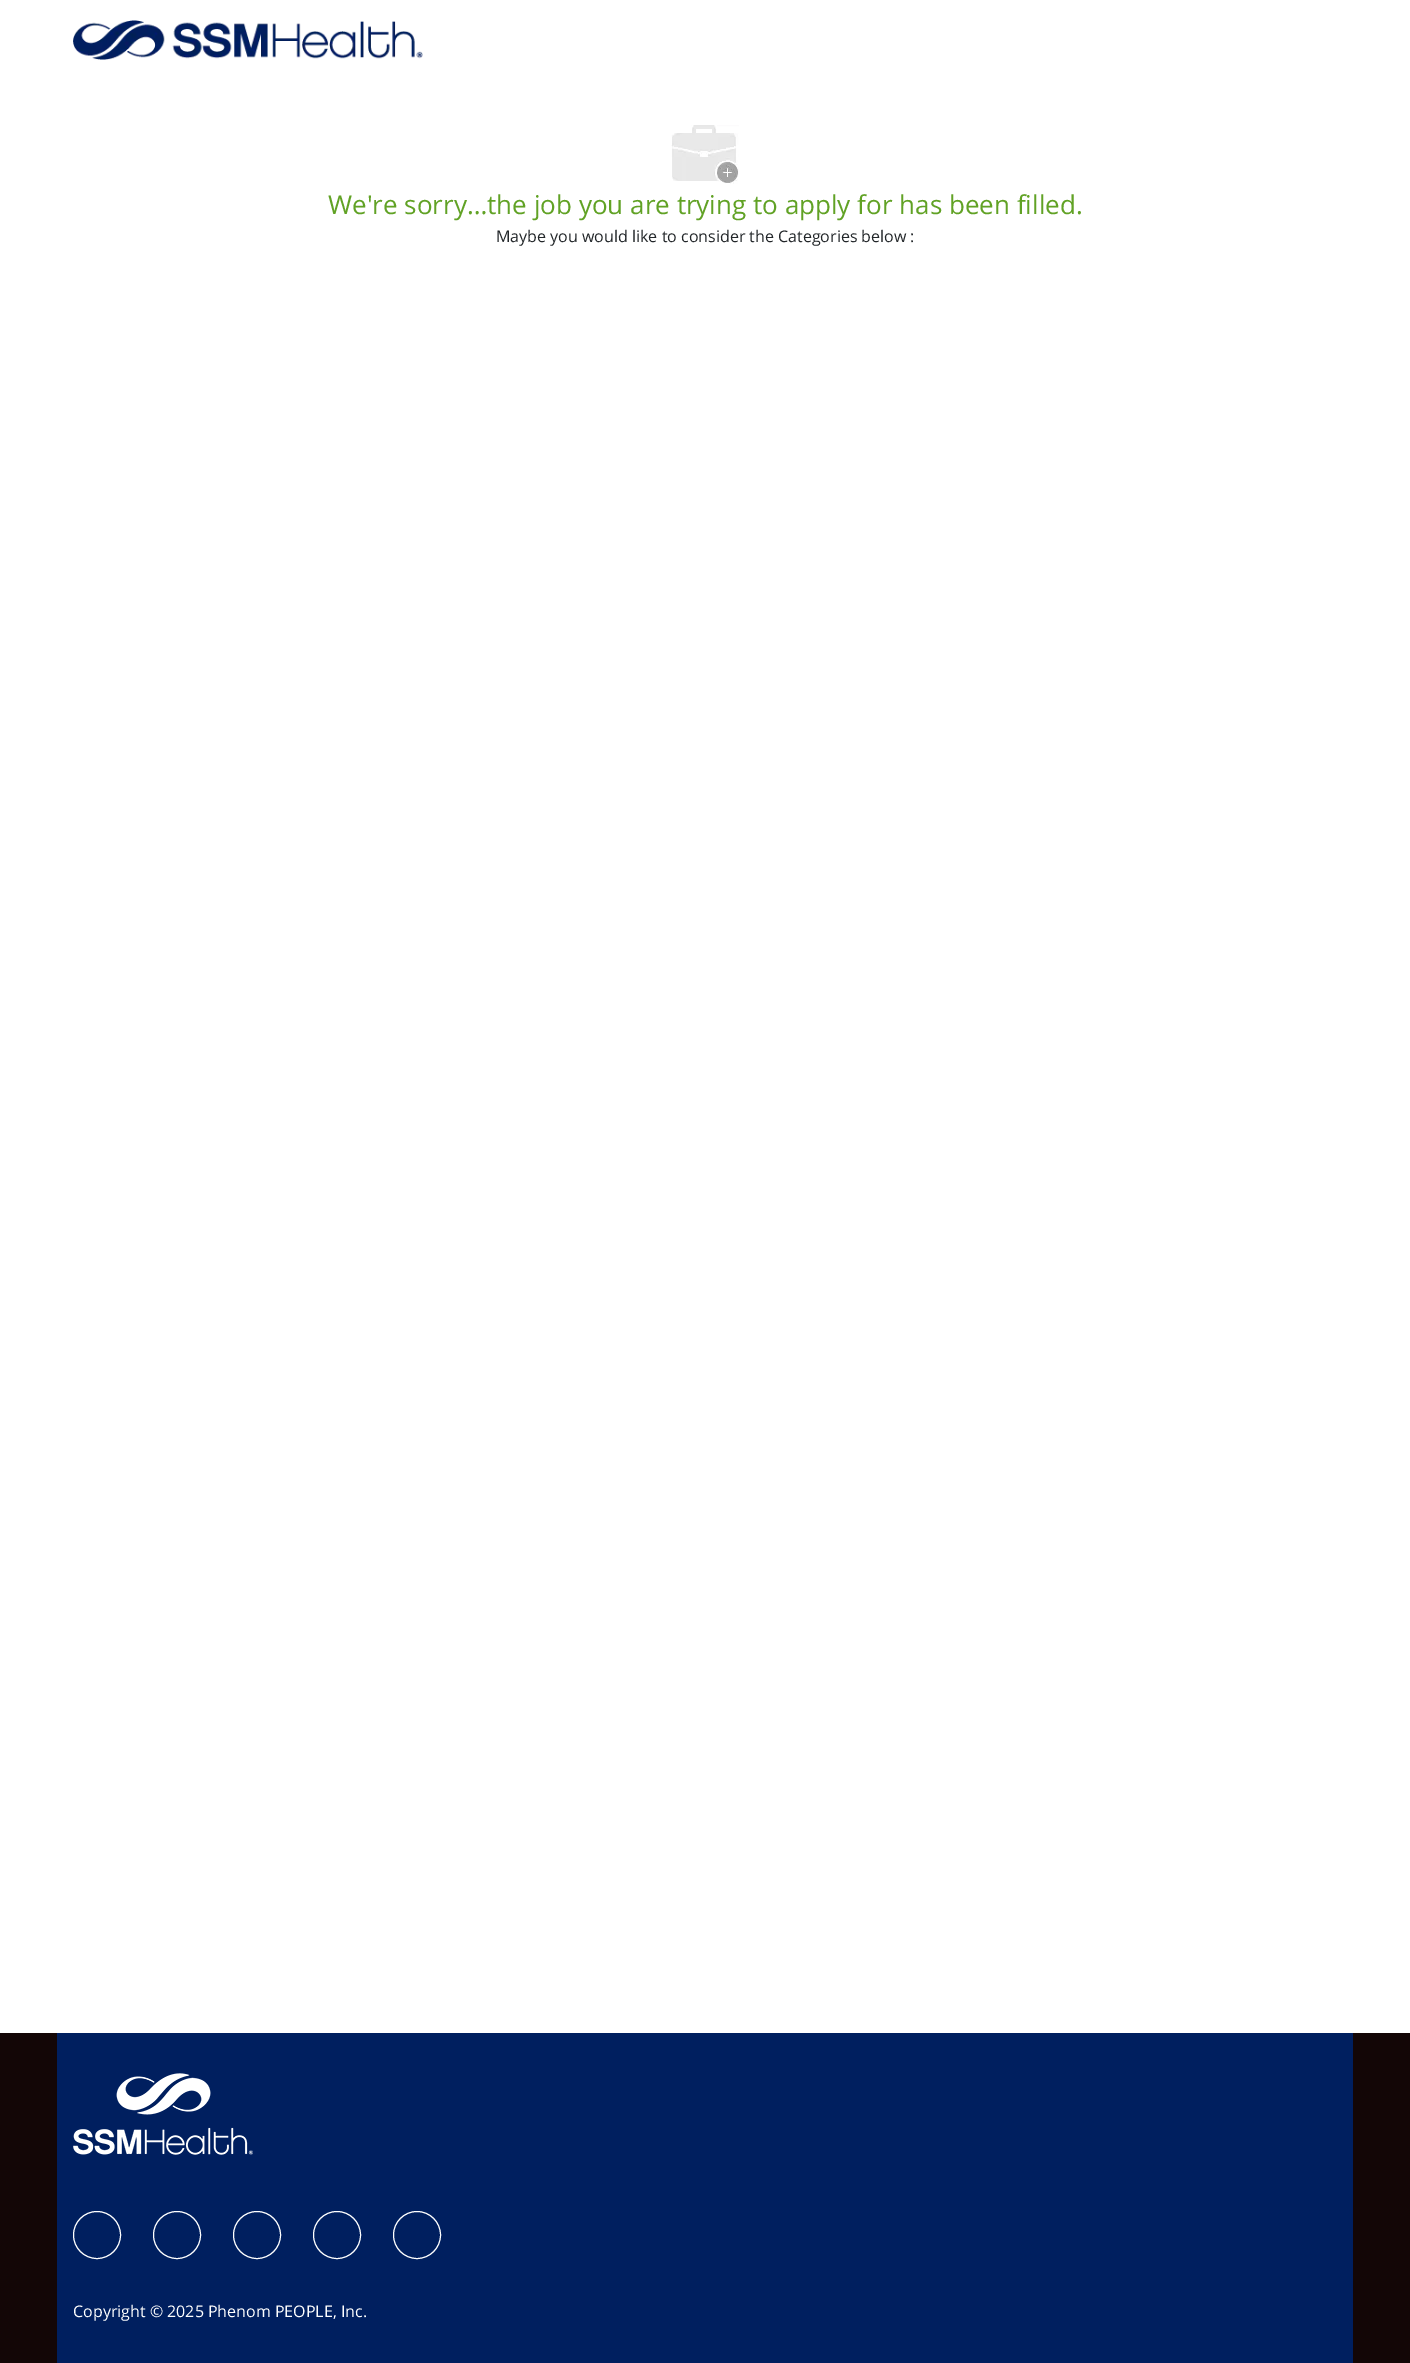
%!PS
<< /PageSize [1410 2363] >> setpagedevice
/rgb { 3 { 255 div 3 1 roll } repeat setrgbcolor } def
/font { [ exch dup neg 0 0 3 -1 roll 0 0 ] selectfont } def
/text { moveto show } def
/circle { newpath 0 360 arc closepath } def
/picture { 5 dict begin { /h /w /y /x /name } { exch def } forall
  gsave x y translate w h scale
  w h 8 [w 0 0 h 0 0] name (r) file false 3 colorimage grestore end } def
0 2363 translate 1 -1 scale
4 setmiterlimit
255 255 255 rgb
0 0 1410 2363 rectfill
(img_01.rgb) 73 20 350 40 picture
(img_02.rgb) 671 125 68 59 picture
19 6 6 rgb
0 2033 1410 330 rectfill
0 31 95 rgb
57 2033 1296 330 rectfill
(img_03.rgb) 73 2073 180 82 picture
255 255 255 rgb
97 2235 23.5 circle stroke
177 2235 23.5 circle stroke
257 2235 23.5 circle stroke
337 2235 23.5 circle stroke
417 2235 23.5 circle stroke
/OpenSans-Regular 26 font
97 162 37 rgb
(We're sorry…the job you are trying to apply for has been filled.) 328 214 text
/OpenSans-Regular 16 font
35 39 42 rgb
(Maybe you would like to consider the Categories below :) 496 242 text
255 255 255 rgb
(Copyright © 2025 Phenom PEOPLE, Inc.) 73 2317 text
showpage
